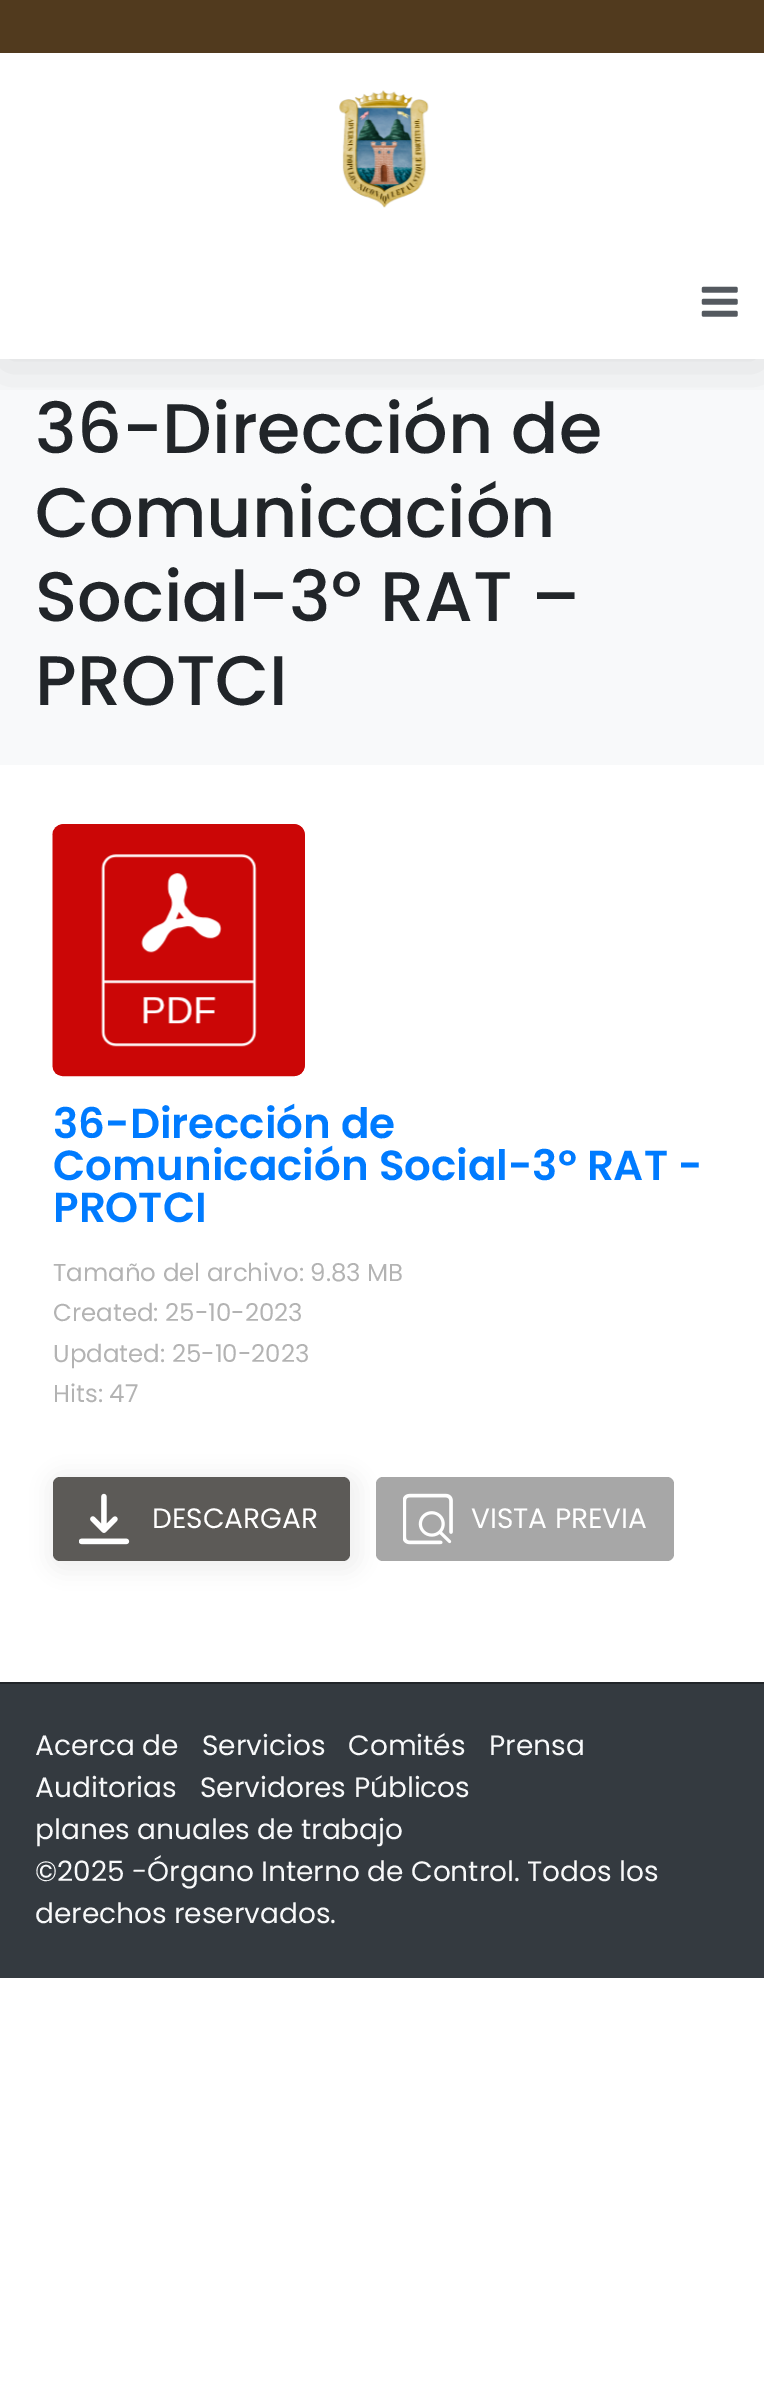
%!PS
<< /PageSize [764 2396] /PageUsesTransparency true >> setpagedevice
/rgb { 3 { 255 div 3 1 roll } repeat setrgbcolor } def
/font { [ exch dup neg 0 0 3 -1 roll 0 0 ] selectfont } def
/text { moveto show } def
/alpha { dup .setfillconstantalpha .setstrokeconstantalpha } def
/roundrect { 5 dict begin { /r /h /w /y /x } { exch def } forall
  x r add y moveto x w add y 2 copy h add r arct x w add y h add x 1 index r arct
  x y h add x y r arct x y 2 copy exch w add exch r arct closepath end } def
/shadow { 12 dict begin { /a /b /q /h /w /y /x } { exch def } forall gsave /was 0 def
  9 -2 -9 { dup b mul 4 div /e exch def 1 sub .425 mul 2.718 exch exp 1 add a .99 .min exch div /now exch def
    1 1 now sub 1 was sub div sub alpha /was now def
    w h .min e 2 mul add 0 gt { x e sub y e sub w e 2 mul add h e 2 mul add
      q e add b .6 mul add w h .min 2 div e add .min 0 .max roundrect fill } if } for grestore end } def
/picture { 5 dict begin { /h /w /y /x /name } { exch def } forall
  gsave x y translate w h scale
  w h 8 [w 0 0 h 0 0] name (r) file false 3 colorimage grestore end } def
0 .pushpdf14devicefilter
0 2396 translate 1 -1 scale
4 setmiterlimit
255 255 255 rgb
0 0 764 2396 rectfill
248 249 250 rgb
0 359 764 406 rectfill
gsave
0 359 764 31 rectclip
0 0 0 rgb
0 9 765 359 0 26 0.1 shadow
grestore
81 58 30 rgb
0 0 764 53 rectfill
(img_01.rgb) 339 90 90 118 picture
0.85 alpha
255 255 255 rgb
17 358 731 1 rectfill
1 alpha
(img_02.rgb) 701 286 37 31 picture
203 6 6 rgb
53 824 252 252 11 roundrect fill
(img_03.rgb) 52 824 253 253 picture
240 240 240 rgb
47 1472 315 101 16 10.5 1 shadow
92 90 87 rgb
53 1477 297 84 7 roundrect fill
(img_04.rgb) 79 1493 51 52 picture
167 167 167 rgb
376 1477 298 84 7 roundrect fill
(img_05.rgb) 403 1493 50 52 picture
52 58 64 rgb
0 1684 764 294 rectfill
33 37 41 rgb
0 1682 764 2 rectfill
/Poppins-Medium 70 font
(36-Dirección de) 35 453 text
(Comunicación) 35 537 text
(Social-3º RAT –) 35 621 text
(PROTCI) 35 705 text
/Poppins-SemiBold 42 font
0 123 255 rgb
(36-Dirección de) 53 1138 text
(Comunicación Social-3º RAT -) 53 1180 text
(PROTCI) 53 1222 text
/Poppins-Regular 24.5 font
179 179 179 rgb
(Tamaño del archivo: 9.83 MB) 53 1281 text
(Created: 25-10-2023) 53 1321 text
(Updated: 25-10-2023) 53 1362 text
(Hits: 47) 53 1402 text
/Poppins-Regular 28 font
255 255 255 rgb
(DESCARGAR) 152 1528 text
(VISTA PREVIA) 471 1528 text
248 249 250 rgb
(Acerca de) 35 1755 text
(Servicios) 202 1755 text
(Comités) 348 1755 text
(Prensa) 489 1755 text
(Auditorias) 35 1797 text
(Servidores Públicos) 200 1797 text
(planes anuales de trabajo) 35 1839 text
(©2025 -Órgano Interno de Control. Todos los) 35 1881 text
(derechos reservados.) 35 1923 text
.poppdf14devicefilter showpage
